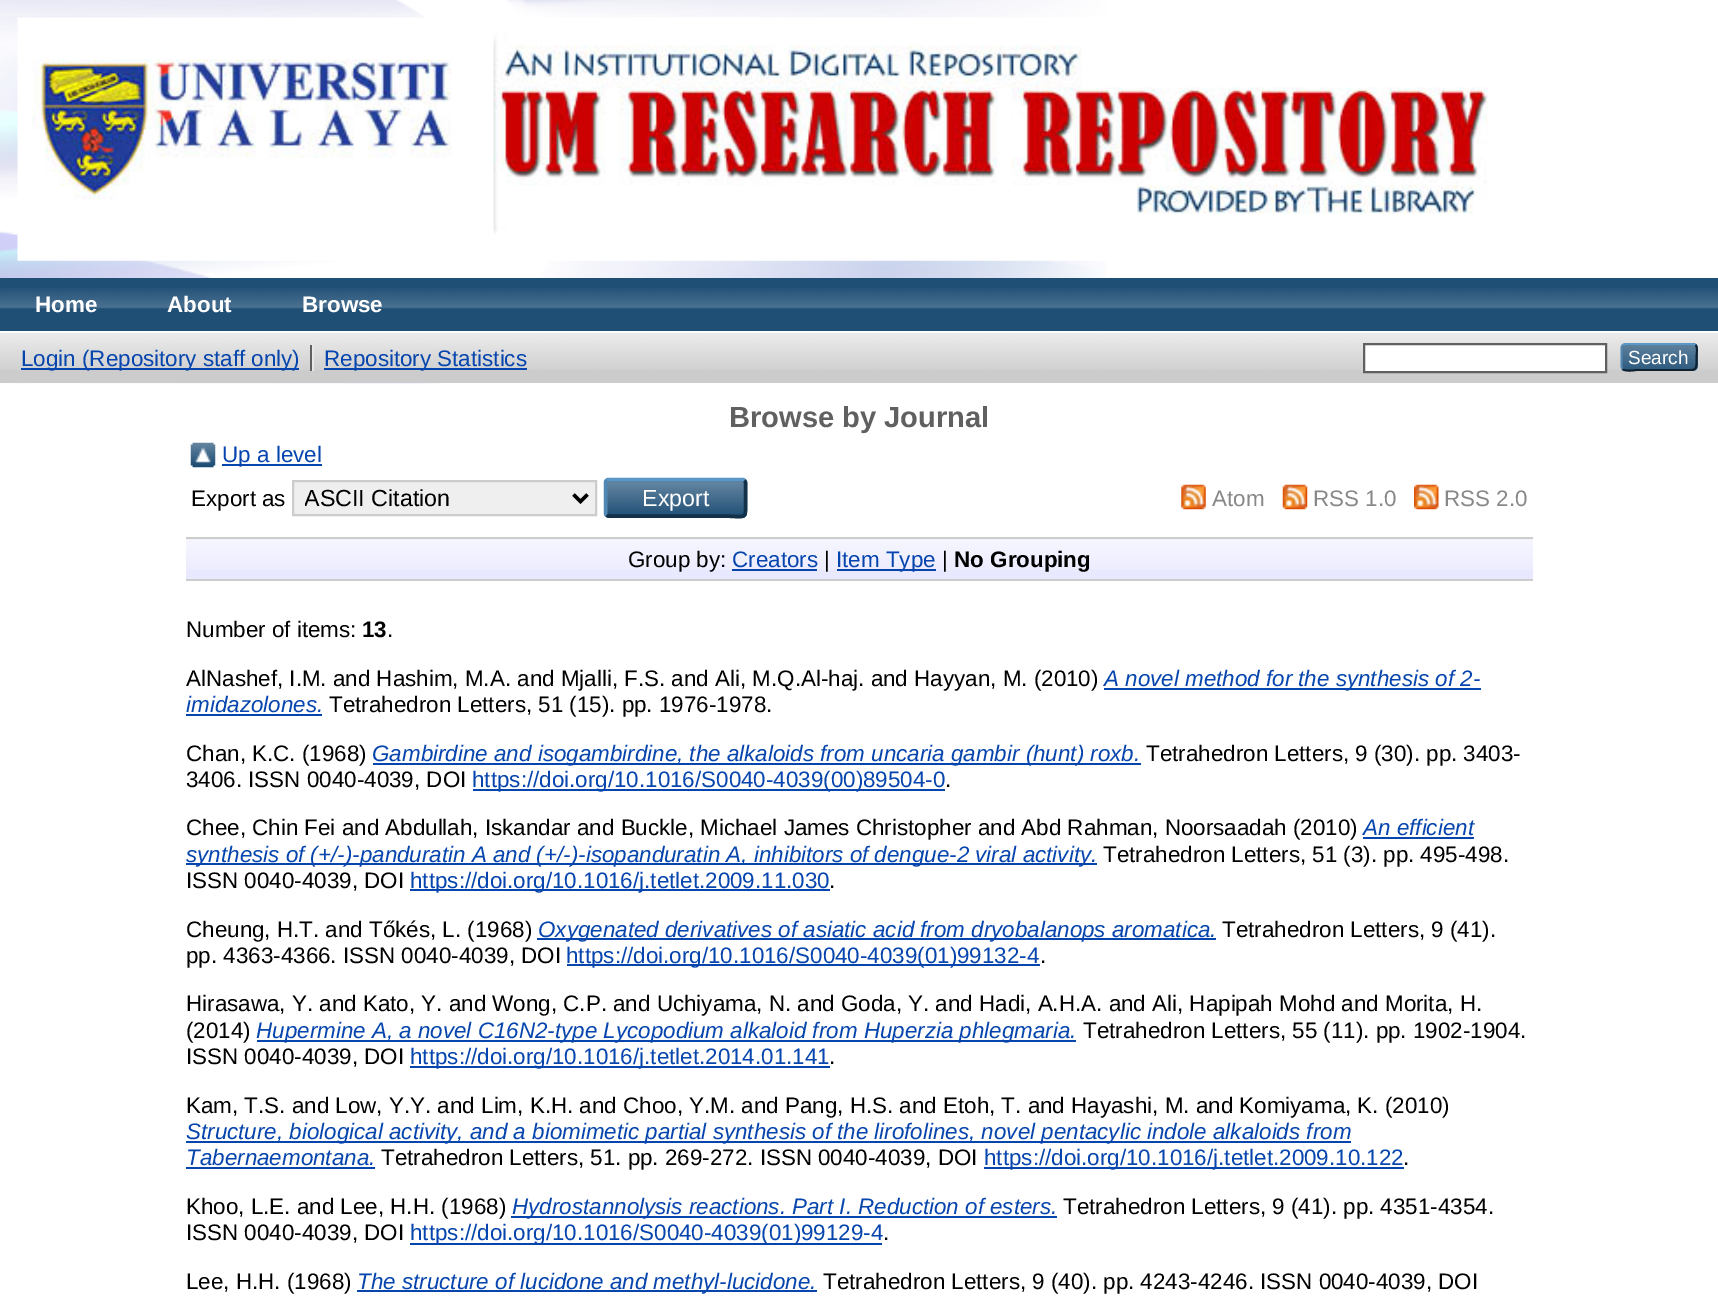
%!PS
<< /PageSize [1718 1303] >> setpagedevice
/rgb { 3 { 255 div 3 1 roll } repeat setrgbcolor } def
/font { [ exch dup neg 0 0 3 -1 roll 0 0 ] selectfont } def
/text { moveto show } def
/roundrect { 5 dict begin { /r /h /w /y /x } { exch def } forall
  x r add y moveto x w add y 2 copy h add r arct x w add y h add x 1 index r arct
  x y h add x y r arct x y 2 copy exch w add exch r arct closepath end } def
/picture { 5 dict begin { /h /w /y /x /name } { exch def } forall
  gsave x y translate w h scale
  w h 8 [w 0 0 h 0 0] name (r) file false 3 colorimage grestore end } def
0 1303 translate 1 -1 scale
4 setmiterlimit
255 255 255 rgb
0 0 1718 1303 rectfill
(img_01.rgb) 0 0 1106 384 picture
(img_02.rgb) 17 17 1471 244 picture
32 79 118 rgb
0 278 1718 53 rectfill
(img_03.rgb) 0 288 1718 21 picture
255 255 255 rgb
0 331 1099 2 rectfill
204 204 204 rgb
0 333 1718 50 rectfill
(img_04.rgb) 0 333 1718 37 picture
96 96 96 rgb
310 345 2 26 rectfill
6 69 173 rgb
21 368 278 2 rectfill
232 232 232 rgb
312 345 2 26 rectfill
6 69 173 rgb
324 368 203 2 rectfill
255 255 255 rgb
1364 344 moveto 242 0 rlineto 0 28 rlineto -242 0 rlineto closepath gsave fill grestore
96 96 96 rgb
2 setlinewidth
stroke
31 79 118 rgb
1621 343 77 28 5 roundrect fill
(img_05.rgb) 1621 343 77 28 picture
91 151 199 rgb
1.8 setlinewidth
1622.5 345 moveto 3 -1 rlineto 67 0 rlineto 3 1 rlineto stroke
13 33 49 rgb
1695.5 345 moveto 2.5 2.5 1 9 1 12 rcurveto 0 15 0.5 13 -15.5 13 rcurveto -44 0 rlineto -1 0 -11.5 2 -14.5 -1 rcurveto stroke
82 135 179 rgb
1622.5 369 moveto -0.5 -1 -1 -2 -1 -3 rcurveto 0 -18 rlineto 0 -1 0.5 -2 1 -3 rcurveto stroke
(img_06.rgb) 190 442 26 26 picture
6 69 173 rgb
222 464 100 2 rectfill
239 239 239 rgb
293 481 moveto 303 0 rlineto 0 34 rlineto -303 0 rlineto closepath gsave fill grestore
204 204 204 rgb
2 setlinewidth
stroke
0 0 0 rgb
3.5 setlinewidth
573.5 494.5 moveto 7 7 rlineto 7 -7 rlineto stroke
31 79 118 rgb
604 478 143 40 5 roundrect fill
(img_07.rgb) 604 481 143 33 picture
91 151 199 rgb
606.5 480.5 moveto 0.5 -0.5 1.5 -1 2.5 -1 rcurveto 133 0 rlineto 1 0 2 0.5 2.5 1 rcurveto stroke
19 50 74 rgb
744.5 480.5 moveto 2 2 1 5.5 1 7.5 rcurveto 0 10 rlineto 0 24 3 18 -25.5 18 rcurveto -111 0 rlineto -2.5 -1 rlineto stroke
82 135 179 rgb
606.5 515 moveto -0.5 -0.5 -1 -1.5 -1 -2 rcurveto 0 -30 rlineto 0 -1 0.5 -2 1 -2.5 rcurveto stroke
(img_08.rgb) 1181 484 25 26 picture
(img_09.rgb) 1282 484 26 26 picture
(img_10.rgb) 1414 484 25 26 picture
232 232 255 rgb
186 539 1347 40 rectfill
(img_11.rgb) 186 539 1347 31 picture
204 204 204 rgb
186 537 1347 2 rectfill
186 579 1347 2 rectfill
6 69 173 rgb
732 569 85 2 rectfill
837 569 99 2 rectfill
1104 688 377 2 rectfill
186 714 136 2 rectfill
373 763 768 2 rectfill
473 789 472 2 rectfill
1363 837 111 2 rectfill
186 863 911 2 rectfill
410 889 420 2 rectfill
537 938 679 2 rectfill
567 964 473 2 rectfill
257 1040 819 2 rectfill
410 1066 420 2 rectfill
186 1141 1165 2 rectfill
186 1167 189 2 rectfill
984 1167 420 2 rectfill
511 1216 546 2 rectfill
410 1243 472 2 rectfill
357 1290 460 2 rectfill
/LiberationSans-Bold 22.4 font
255 255 255 rgb
(Home) 35 312 text
(About) 167 312 text
(Browse) 302 312 text
/LiberationSans-Regular 22.4 font
6 69 173 rgb
(Login \(Repository staff only\)) 21 366 text
(Repository Statistics) 324 366 text
/LiberationSans-Regular 19 font
255 255 255 rgb
(Search) 1628 364 text
/LiberationSans-Bold 29.1 font
96 96 96 rgb
(Browse by Journal) 729 427 text
/LiberationSans-Regular 22.4 font
6 69 173 rgb
(Up a level) 222 462 text
0 0 0 rgb
(Export as) 191 506 text
gsave
305 483 259 30 rectclip
/LiberationSans-Regular 23.25 font
(ASCII Citation) 304 506 text
grestore
/LiberationSans-Regular 23.25 font
255 255 255 rgb
(Export) 642 506 text
/LiberationSans-Regular 22.4 font
136 136 136 rgb
(Atom) 1212 506 text
(RSS 1.0) 1313 506 text
(RSS 2.0) 1444 506 text
0 0 0 rgb
(Group by:) 628 567 text
6 69 173 rgb
(Creators) 732 567 text
0 0 0 rgb
(|) 824 567 text
6 69 173 rgb
(Item Type) 836 567 text
0 0 0 rgb
(|) 942 567 text
/LiberationSans-Bold 22.4 font
(No Grouping) 954 567 text
/LiberationSans-Regular 22.4 font
(Number of items:) 186 637 text
/LiberationSans-Bold 22.4 font
(13) 362 637 text
/LiberationSans-Regular 22.4 font
(.) 387 637 text
(AlNashef, I.M. and Hashim, M.A. and Mjalli, F.S. and Ali, M.Q.Al-haj. and Hayyan, M. \(2010\)) 186 686 text
/LiberationSans-Italic 22.4 font
6 69 173 rgb
(A novel method for the synthesis of 2-) 1104 686 text
(imidazolones.) 186 712 text
/LiberationSans-Regular 22.4 font
0 0 0 rgb
(Tetrahedron Letters, 51 \(15\). pp. 1976-1978.) 329 712 text
(Chan, K.C. \(1968\)) 186 761 text
/LiberationSans-Italic 22.4 font
6 69 173 rgb
(Gambirdine and isogambirdine, the alkaloids from uncaria gambir \(hunt\) roxb.) 372 761 text
/LiberationSans-Regular 22.4 font
0 0 0 rgb
(Tetrahedron Letters, 9 \(30\). pp. 3403-) 1146 761 text
(3406. ISSN 0040-4039, DOI) 186 787 text
6 69 173 rgb
(https://doi.org/10.1016/S0040-4039\(00\)89504-0) 472 787 text
0 0 0 rgb
(.) 945 787 text
(Chee, Chin Fei and Abdullah, Iskandar and Buckle, Michael James Christopher and Abd Rahman, Noorsaadah \(2010\)) 186 835 text
/LiberationSans-Italic 22.4 font
6 69 173 rgb
(An efficient) 1363 835 text
(synthesis of \(+/-\)-panduratin A and \(+/-\)-isopanduratin A, inhibitors of dengue-2 viral activity.) 186 862 text
/LiberationSans-Regular 22.4 font
0 0 0 rgb
(Tetrahedron Letters, 51 \(3\). pp. 495-498.) 1103 862 text
(ISSN 0040-4039, DOI) 186 888 text
6 69 173 rgb
(https://doi.org/10.1016/j.tetlet.2009.11.030) 410 888 text
0 0 0 rgb
(.) 829 888 text
(Cheung, H.T. and Tőkés, L. \(1968\)) 186 937 text
/LiberationSans-Italic 22.4 font
6 69 173 rgb
(Oxygenated derivatives of asiatic acid from dryobalanops aromatica.) 538 937 text
/LiberationSans-Regular 22.4 font
0 0 0 rgb
(Tetrahedron Letters, 9 \(41\).) 1222 937 text
(pp. 4363-4366. ISSN 0040-4039, DOI) 186 963 text
6 69 173 rgb
(https://doi.org/10.1016/S0040-4039\(01\)99132-4) 566 963 text
0 0 0 rgb
(.) 1040 963 text
(Hirasawa, Y. and Kato, Y. and Wong, C.P. and Uchiyama, N. and Goda, Y. and Hadi, A.H.A. and Ali, Hapipah Mohd and Morita, H.) 186 1011 text
(\(2014\)) 186 1038 text
/LiberationSans-Italic 22.4 font
6 69 173 rgb
(Hupermine A, a novel C16N2-type Lycopodium alkaloid from Huperzia phlegmaria.) 256 1038 text
/LiberationSans-Regular 22.4 font
0 0 0 rgb
(Tetrahedron Letters, 55 \(11\). pp. 1902-1904.) 1083 1038 text
(ISSN 0040-4039, DOI) 186 1064 text
6 69 173 rgb
(https://doi.org/10.1016/j.tetlet.2014.01.141) 410 1064 text
0 0 0 rgb
(.) 829 1064 text
(Kam, T.S. and Low, Y.Y. and Lim, K.H. and Choo, Y.M. and Pang, H.S. and Etoh, T. and Hayashi, M. and Komiyama, K. \(2010\)) 186 1113 text
/LiberationSans-Italic 22.4 font
6 69 173 rgb
(Structure, biological activity, and a biomimetic partial synthesis of the lirofolines, novel pentacylic indole alkaloids from) 186 1139 text
(Tabernaemontana.) 186 1165 text
/LiberationSans-Regular 22.4 font
0 0 0 rgb
(Tetrahedron Letters, 51. pp. 269-272. ISSN 0040-4039, DOI) 381 1165 text
6 69 173 rgb
(https://doi.org/10.1016/j.tetlet.2009.10.122) 984 1165 text
0 0 0 rgb
(.) 1403 1165 text
(Khoo, L.E. and Lee, H.H. \(1968\)) 186 1214 text
/LiberationSans-Italic 22.4 font
6 69 173 rgb
(Hydrostannolysis reactions. Part I. Reduction of esters.) 512 1214 text
/LiberationSans-Regular 22.4 font
0 0 0 rgb
(Tetrahedron Letters, 9 \(41\). pp. 4351-4354.) 1063 1214 text
(ISSN 0040-4039, DOI) 186 1240 text
6 69 173 rgb
(https://doi.org/10.1016/S0040-4039\(01\)99129-4) 410 1240 text
0 0 0 rgb
(.) 883 1240 text
(Lee, H.H. \(1968\)) 186 1289 text
/LiberationSans-Italic 22.4 font
6 69 173 rgb
(The structure of lucidone and methyl-lucidone.) 357 1289 text
/LiberationSans-Regular 22.4 font
0 0 0 rgb
(Tetrahedron Letters, 9 \(40\). pp. 4243-4246. ISSN 0040-4039, DOI) 823 1289 text
showpage
